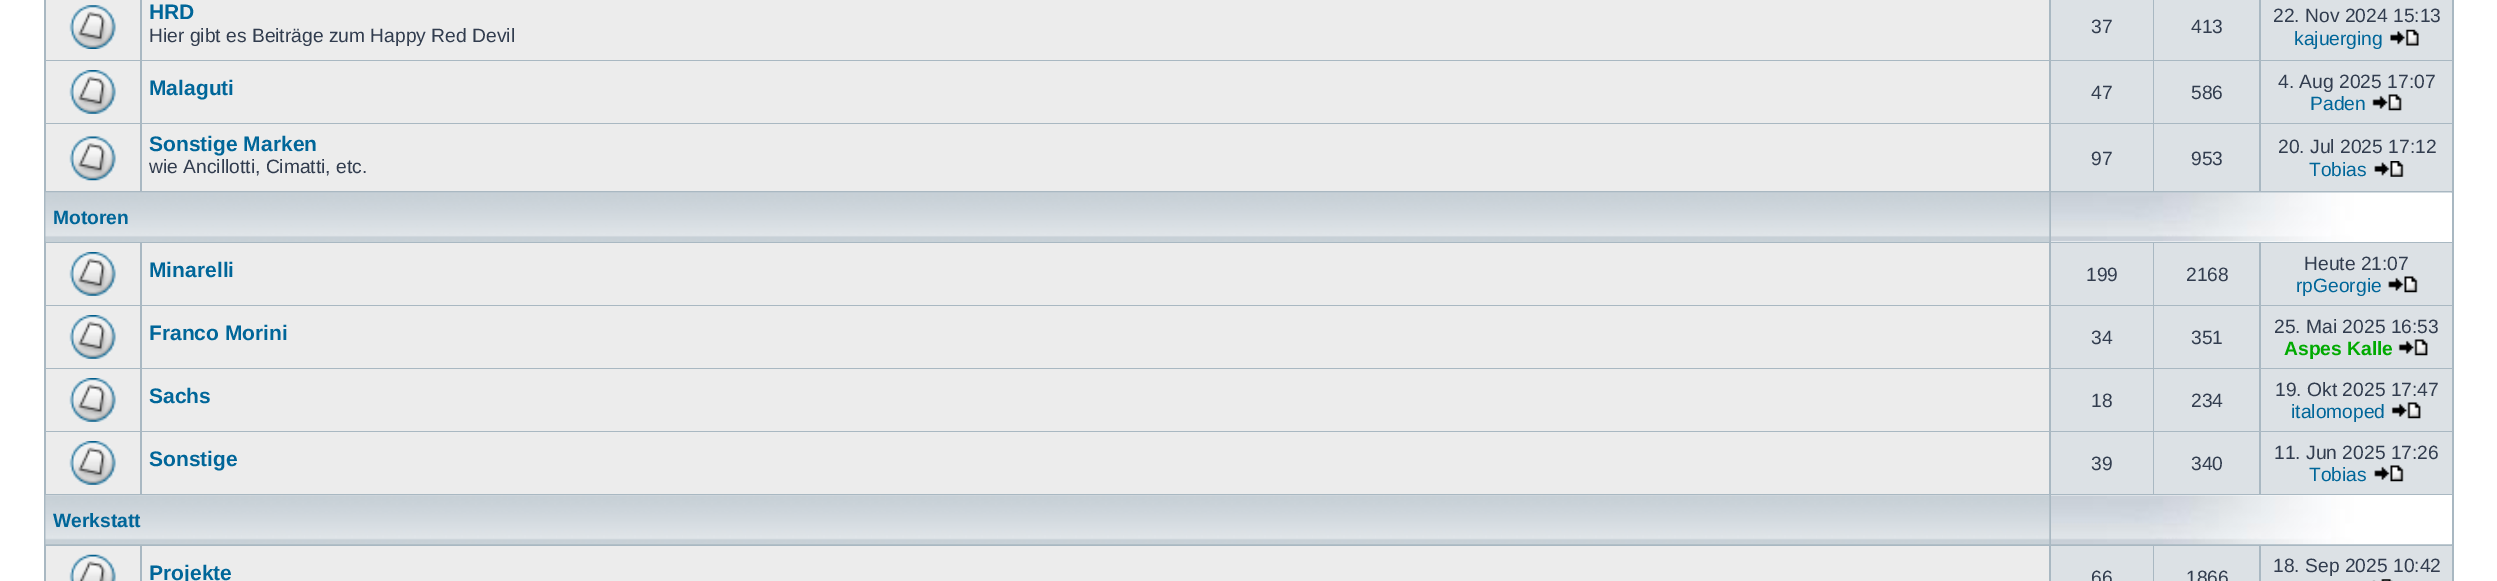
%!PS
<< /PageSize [2497 581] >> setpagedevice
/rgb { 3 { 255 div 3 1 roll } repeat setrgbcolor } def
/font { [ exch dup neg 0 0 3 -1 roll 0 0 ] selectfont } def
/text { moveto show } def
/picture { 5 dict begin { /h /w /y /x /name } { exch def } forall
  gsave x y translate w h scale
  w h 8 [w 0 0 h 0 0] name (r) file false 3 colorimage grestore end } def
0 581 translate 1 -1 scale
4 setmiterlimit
255 255 255 rgb
0 0 2497 581 rectfill
169 184 194 rgb
44 0 2410 581 rectfill
236 236 236 rgb
46 0 94 60 rectfill
(img_01.rgb) 69 5 47 44 picture
142 0 1907 60 rectfill
220 225 229 rgb
2051 0 102 60 rectfill
2154 0 105 60 rectfill
2261 0 191 60 rectfill
(img_02.rgb) 2390 29 29 17 picture
236 236 236 rgb
46 61 94 62 rectfill
(img_03.rgb) 69 70 47 44 picture
142 61 1907 62 rectfill
220 225 229 rgb
2051 61 102 62 rectfill
2154 61 105 62 rectfill
2261 61 191 62 rectfill
(img_04.rgb) 2372 94 30 17 picture
236 236 236 rgb
46 124 94 67 rectfill
(img_05.rgb) 69 136 47 45 picture
142 124 1907 67 rectfill
220 225 229 rgb
2051 124 102 67 rectfill
2154 124 105 67 rectfill
2261 124 191 67 rectfill
(img_06.rgb) 2374 161 30 16 picture
199 208 215 rgb
46 241 2003 1 rectfill
(img_07.rgb) 45 192 2005 50 picture
255 255 255 rgb
2051 193 401 49 rectfill
(img_08.rgb) 2051 192 401 50 picture
236 236 236 rgb
46 243 94 62 rectfill
(img_03.rgb) 69 252 47 44 picture
142 243 1907 62 rectfill
220 225 229 rgb
2051 243 102 62 rectfill
2154 243 105 62 rectfill
2261 243 191 62 rectfill
(img_09.rgb) 2388 276 30 17 picture
236 236 236 rgb
46 306 94 62 rectfill
(img_03.rgb) 69 315 47 44 picture
142 306 1907 62 rectfill
220 225 229 rgb
2051 306 102 62 rectfill
2154 306 105 62 rectfill
2261 306 191 62 rectfill
(img_10.rgb) 2398 339 30 17 picture
236 236 236 rgb
46 369 94 62 rectfill
(img_03.rgb) 69 378 47 44 picture
142 369 1907 62 rectfill
220 225 229 rgb
2051 369 102 62 rectfill
2154 369 105 62 rectfill
2261 369 191 62 rectfill
(img_10.rgb) 2391 402 30 17 picture
236 236 236 rgb
46 432 94 62 rectfill
(img_03.rgb) 69 441 47 44 picture
142 432 1907 62 rectfill
220 225 229 rgb
2051 432 102 62 rectfill
2154 432 105 62 rectfill
2261 432 191 62 rectfill
(img_09.rgb) 2374 465 30 17 picture
(img_11.rgb) 45 495 2005 50 picture
255 255 255 rgb
2051 495 401 49 rectfill
(img_12.rgb) 2051 495 401 50 picture
236 236 236 rgb
46 546 94 35 rectfill
(img_13.rgb) 69 554 47 27 picture
142 546 1907 35 rectfill
220 225 229 rgb
2051 546 102 35 rectfill
2154 546 105 35 rectfill
2261 546 191 35 rectfill
(img_14.rgb) 2372 579 21 2 picture
/LiberationSans-Bold 21 font
0 102 153 rgb
(HRD) 149 19 text
/LiberationSans-Regular 19.25 font
50 61 79 rgb
(Hier gibt es Beiträge zum Happy Red Devil) 149 42 text
(37) 2091 33 text
(413) 2191 33 text
(22. Nov 2024 15:13) 2273 22 text
0 102 153 rgb
(kajuerging) 2294 45 text
/LiberationSans-Bold 21 font
(Malaguti) 149 95 text
/LiberationSans-Regular 19.25 font
50 61 79 rgb
(47) 2091 99 text
(586) 2191 99 text
(4. Aug 2025 17:07) 2278 88 text
0 102 153 rgb
(Paden) 2310 110 text
/LiberationSans-Bold 21 font
(Sonstige Marken) 149 151 text
/LiberationSans-Regular 19.25 font
50 61 79 rgb
(wie Ancillotti, Cimatti, etc.) 149 173 text
(97) 2091 165 text
(953) 2191 165 text
(20. Jul 2025 17:12) 2278 153 text
0 102 153 rgb
(Tobias) 2309 176 text
/LiberationSans-Bold 19.25 font
(Motoren) 53 224 text
/LiberationSans-Bold 21 font
(Minarelli) 149 277 text
/LiberationSans-Regular 19.25 font
50 61 79 rgb
(199) 2086 281 text
(2168) 2186 281 text
(Heute 21:07) 2304 270 text
0 102 153 rgb
(rpGeorgie) 2296 292 text
/LiberationSans-Bold 21 font
(Franco Morini) 149 340 text
/LiberationSans-Regular 19.25 font
50 61 79 rgb
(34) 2091 344 text
(351) 2191 344 text
(25. Mai 2025 16:53) 2274 333 text
/LiberationSans-Bold 19.25 font
0 170 0 rgb
(Aspes Kalle) 2284 355 text
/LiberationSans-Bold 21 font
0 102 153 rgb
(Sachs) 149 403 text
/LiberationSans-Regular 19.25 font
50 61 79 rgb
(18) 2091 407 text
(234) 2191 407 text
(19. Okt 2025 17:47) 2275 396 text
0 102 153 rgb
(italomoped) 2291 418 text
/LiberationSans-Bold 21 font
(Sonstige) 149 466 text
/LiberationSans-Regular 19.25 font
50 61 79 rgb
(39) 2091 470 text
(340) 2191 470 text
(11. Jun 2025 17:26) 2274 459 text
0 102 153 rgb
(Tobias) 2309 481 text
/LiberationSans-Bold 19.25 font
(Werkstatt) 53 527 text
/LiberationSans-Bold 21 font
(Projekte) 149 580 text
/LiberationSans-Regular 19.25 font
50 61 79 rgb
(66) 2091 584 text
(1866) 2186 584 text
(18. Sep 2025 10:42) 2273 572 text
showpage
